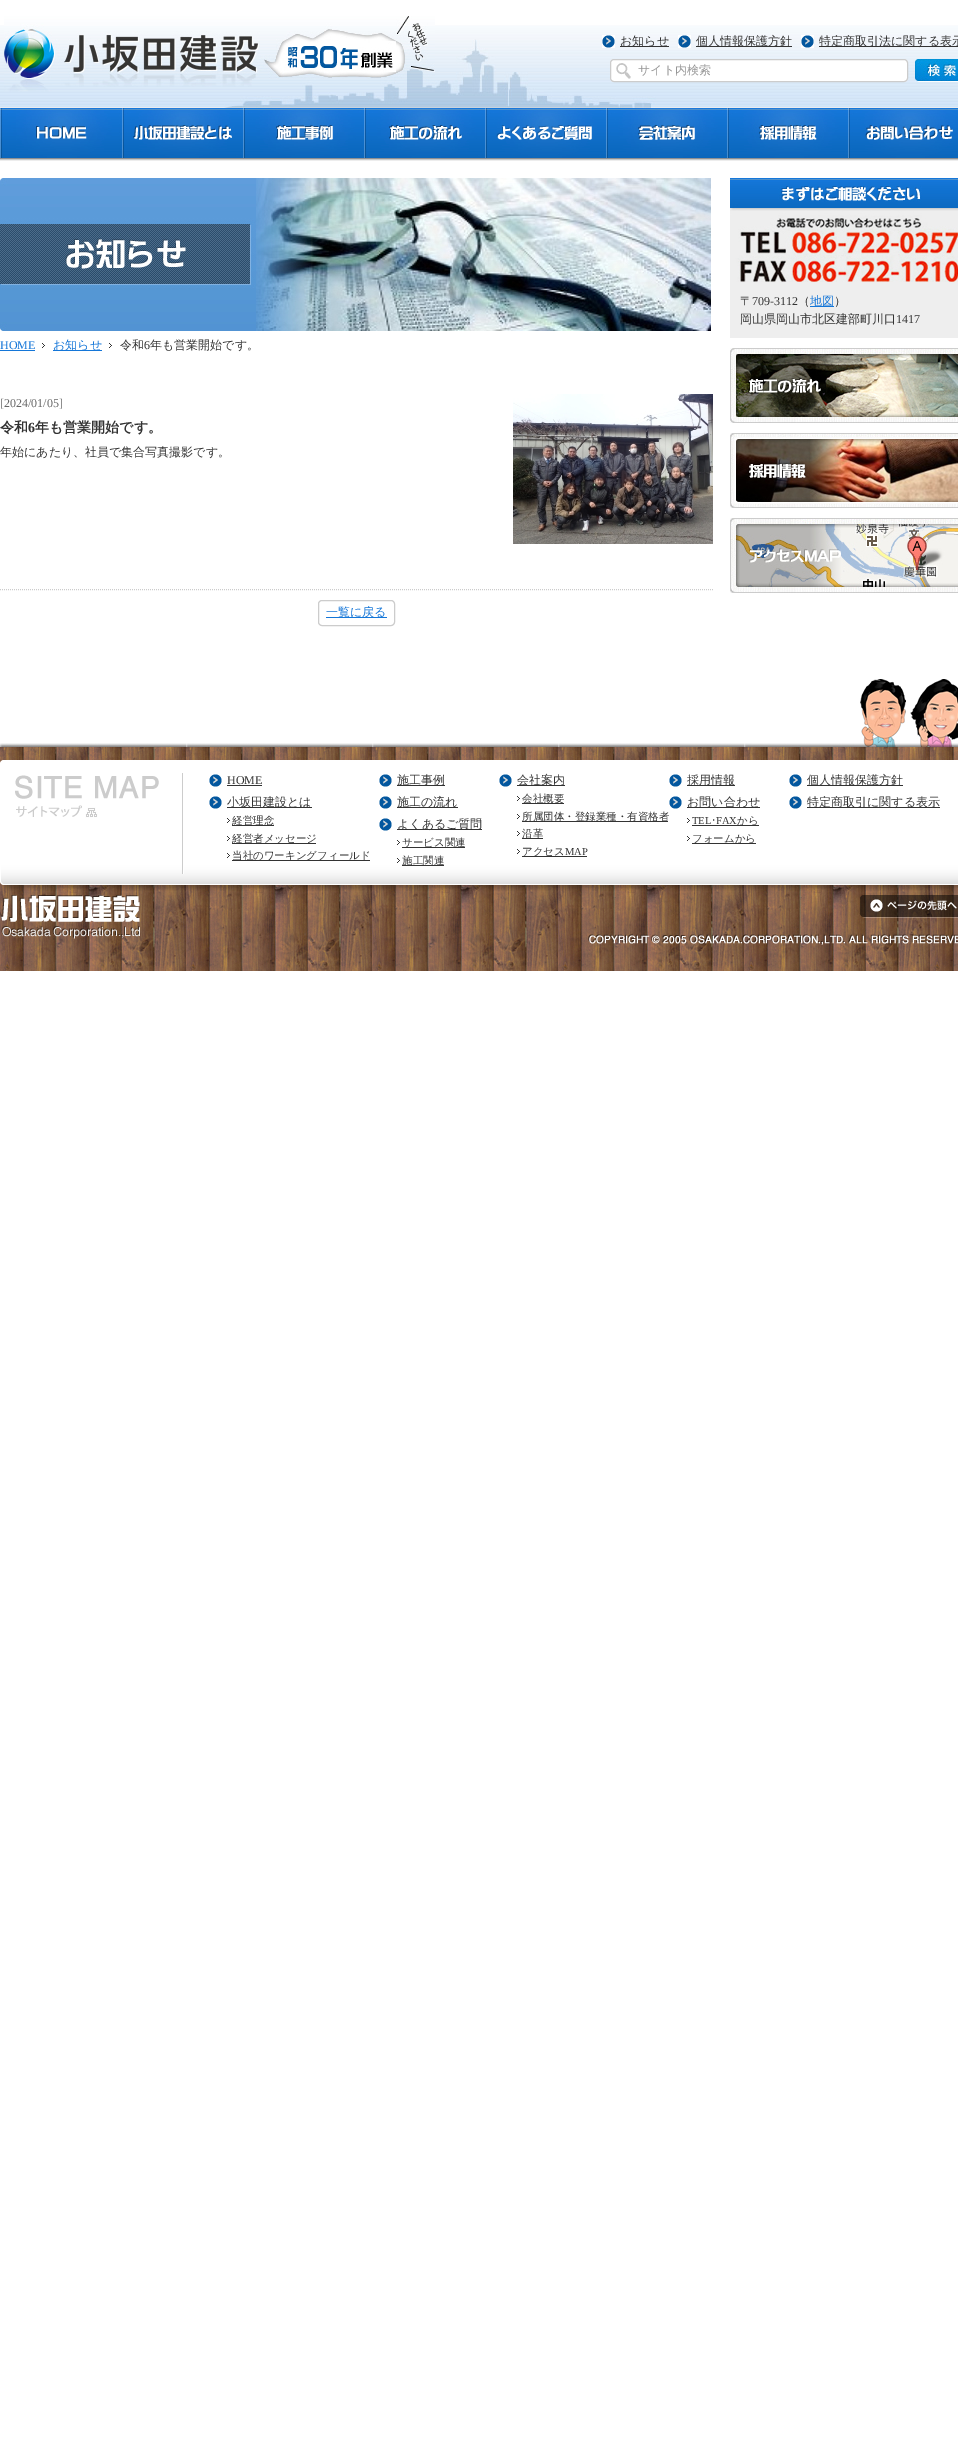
%!PS
<< /PageSize [958 2445] >> setpagedevice
/rgb { 3 { 255 div 3 1 roll } repeat setrgbcolor } def
/font { [ exch dup neg 0 0 3 -1 roll 0 0 ] selectfont } def
/text { moveto show } def
/roundrect { 5 dict begin { /r /h /w /y /x } { exch def } forall
  x r add y moveto x w add y 2 copy h add r arct x w add y h add x 1 index r arct
  x y h add x y r arct x y 2 copy exch w add exch r arct closepath end } def
/picture { 5 dict begin { /h /w /y /x /name } { exch def } forall
  gsave x y translate w h scale
  w h 8 [w 0 0 h 0 0] name (r) file false 3 colorimage grestore end } def
0 2445 translate 1 -1 scale
4 setmiterlimit
255 255 255 rgb
0 0 958 2445 rectfill
(img_01.rgb) 0 25 958 136 picture
(img_02.rgb) 224 39 432 69 picture
(img_03.rgb) 4 16 431 76 picture
(img_04.rgb) 602 35 13 13 picture
51 51 51 rgb
620 46 49 1 rectfill
(img_04.rgb) 678 35 13 13 picture
696 46 96 1 rectfill
(img_04.rgb) 801 35 13 13 picture
819 46 139 1 rectfill
255 255 255 rgb
610 59 298 23 4 roundrect fill
(img_05.rgb) 616 63 15 16 picture
204 204 204 rgb
610.5 59.5 297 22 3.5 roundrect stroke
(img_06.rgb) 915 59 43 23 picture
(img_07.rgb) 0 108 123 50 picture
(img_08.rgb) 5 113 114 42 picture
(img_09.rgb) 123 108 121 50 picture
(img_10.rgb) 127 113 113 42 picture
(img_11.rgb) 244 108 121 50 picture
(img_12.rgb) 248 113 113 42 picture
(img_13.rgb) 365 108 121 50 picture
(img_14.rgb) 369 113 113 42 picture
(img_15.rgb) 486 108 121 50 picture
(img_16.rgb) 490 113 113 42 picture
(img_17.rgb) 607 108 121 50 picture
(img_18.rgb) 611 113 113 42 picture
(img_19.rgb) 728 108 121 50 picture
(img_20.rgb) 732 113 113 42 picture
(img_21.rgb) 849 108 109 50 picture
(img_22.rgb) 853 113 105 42 picture
(img_23.rgb) 730 178 228 104 picture
238 238 238 rgb
730 282 228 56 rectfill
20 118 216 rgb
810 306 24 1 rectfill
(img_24.rgb) 730 348 228 75 picture
(img_25.rgb) 730 433 228 75 picture
(img_26.rgb) 730 518 228 75 picture
(img_27.rgb) 0 178 711 153 picture
0 350 35 1 rectfill
(img_28.rgb) 42 343 3 5 picture
53 350 49 1 rectfill
(img_28.rgb) 109 343 3 5 picture
204 204 204 rgb
[1 1] 0 setdash
0 589.5 moveto 713 0 rlineto stroke
(img_29.rgb) 513 394 200 150 picture
[] 0 setdash
318.5 600.5 76 25 3.5 roundrect stroke
20 118 216 rgb
326 617 61 1 rectfill
(img_30.rgb) 0 743 958 228 picture
(img_31.rgb) 860 679 98 68 picture
(img_32.rgb) 0 760 958 131 picture
(img_04.rgb) 209 774 13 13 picture
51 51 51 rgb
227 785 35 1 rectfill
(img_04.rgb) 209 796 13 13 picture
227 807 85 1 rectfill
(img_28.rgb) 227 818 3 5 picture
232 825 42 1 rectfill
(img_28.rgb) 227 836 3 5 picture
232 843 84 1 rectfill
(img_28.rgb) 227 853 3 5 picture
232 860 138 1 rectfill
(img_04.rgb) 379 774 13 13 picture
397 785 48 1 rectfill
(img_04.rgb) 379 796 13 13 picture
397 807 61 1 rectfill
(img_04.rgb) 379 818 13 13 picture
397 829 85 1 rectfill
(img_28.rgb) 397 840 3 5 picture
402 847 63 1 rectfill
(img_28.rgb) 397 858 3 5 picture
402 865 42 1 rectfill
(img_04.rgb) 499 774 13 13 picture
517 785 48 1 rectfill
(img_28.rgb) 517 796 3 5 picture
522 803 42 1 rectfill
(img_28.rgb) 517 814 3 5 picture
522 821 146 1 rectfill
(img_28.rgb) 517 831 3 5 picture
522 838 21 1 rectfill
(img_28.rgb) 517 849 3 5 picture
522 856 65 1 rectfill
(img_04.rgb) 669 774 13 13 picture
687 785 48 1 rectfill
(img_04.rgb) 669 796 13 13 picture
687 807 73 1 rectfill
(img_28.rgb) 687 818 3 5 picture
692 825 67 1 rectfill
(img_28.rgb) 687 836 3 5 picture
692 843 64 1 rectfill
(img_04.rgb) 789 774 13 13 picture
807 785 96 1 rectfill
(img_04.rgb) 789 796 13 13 picture
807 807 133 1 rectfill
(img_33.rgb) 1 895 139 44 picture
(img_34.rgb) 860 895 98 23 picture
(img_35.rgb) 588 934 370 11 picture
/WenQuanYiZenHei-Medium 12 font
(お知らせ) 620 45 text
(個人情報保護方針) 696 45 text
(特定商取引法に関する表示) 819 45 text
150 150 150 rgb
(サイト内検索) 638 74 text
51 51 51 rgb
(〒) 740 305 text
/LiberationSerif-Regular 12 font
(709-3112) 752 305 text
/WenQuanYiZenHei-Medium 12 font
(（) 798 305 text
20 118 216 rgb
(地図) 810 305 text
51 51 51 rgb
(）) 834 305 text
(岡山県岡山市北区建部町川口) 740 323 text
/LiberationSerif-Regular 12 font
(1417) 896 323 text
20 118 216 rgb
(HOME) 0 349 text
/WenQuanYiZenHei-Medium 12 font
(お知らせ) 53 349 text
51 51 51 rgb
(令和) 120 349 text
/LiberationSerif-Regular 12 font
(6) 144 349 text
/WenQuanYiZenHei-Medium 12 font
(年も営業開始です。) 150 349 text
/LiberationSerif-Regular 12 font
102 102 102 rgb
([2024/01/05]) 0 407 text
/WenQuanYiZenHei-Bold 14 font
51 51 51 rgb
(令和) 0 432 text
/LiberationSerif-Bold 14 font
(6) 28 432 text
/WenQuanYiZenHei-Bold 14 font
(年も営業開始です。) 35 432 text
/WenQuanYiZenHei-Medium 12 font
(年始にあたり、社員で集合写真撮影です。) 0 456 text
20 118 216 rgb
(一覧に戻る) 326 616 text
/LiberationSerif-Regular 12 font
51 51 51 rgb
(HOME) 227 784 text
/WenQuanYiZenHei-Medium 12 font
(小坂田建設とは) 227 806 text
/WenQuanYiZenHei-Medium 10.5 font
(経営理念) 232 824 text
(経営者メッセージ) 232 842 text
(当社のワーキングフィールド) 232 859 text
/WenQuanYiZenHei-Medium 12 font
(施工事例) 397 784 text
(施工の流れ) 397 806 text
(よくあるご質問) 397 828 text
/WenQuanYiZenHei-Medium 10.5 font
(サービス関連) 402 846 text
(施工関連) 402 864 text
/WenQuanYiZenHei-Medium 12 font
(会社案内) 517 784 text
/WenQuanYiZenHei-Medium 10.5 font
(会社概要) 522 802 text
(所属団体・登録業種・有資格者) 522 820 text
(沿革) 522 837 text
(アクセス) 522 855 text
/LiberationSerif-Regular 10.5 font
(MAP) 565 855 text
/WenQuanYiZenHei-Medium 12 font
(採用情報) 687 784 text
(お問い合わせ) 687 806 text
/LiberationSerif-Regular 10.5 font
(TEL) 692 824 text
/IPAPGothic-Regular 10.5 font
(･) 711 824 text
/LiberationSerif-Regular 10.5 font
(FAX) 716 824 text
/WenQuanYiZenHei-Medium 10.5 font
(から) 737 824 text
(フォームから) 692 842 text
/WenQuanYiZenHei-Medium 12 font
(個人情報保護方針) 807 784 text
(特定商取引に関する表示) 807 806 text
showpage
